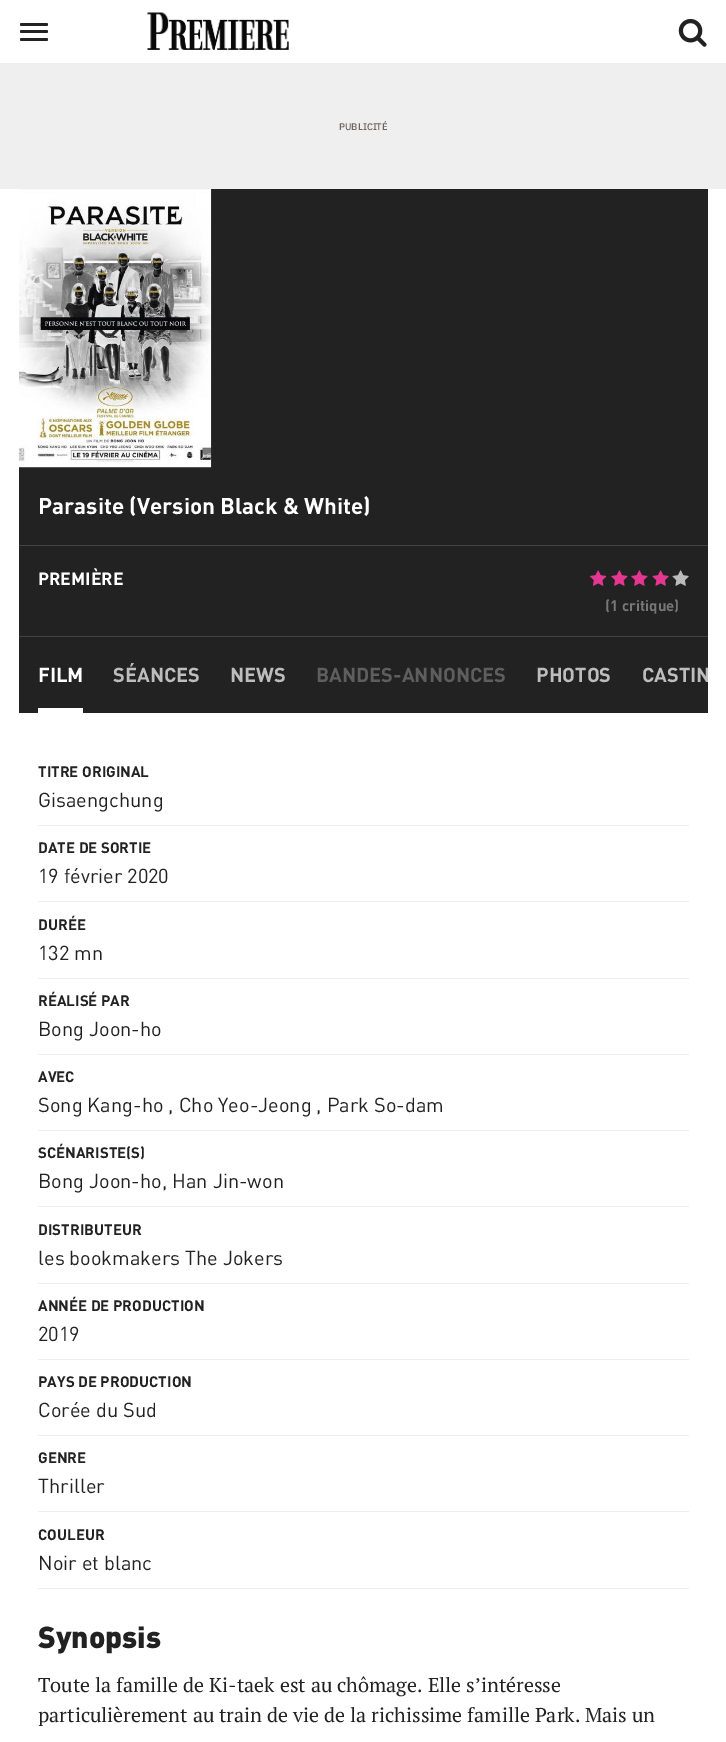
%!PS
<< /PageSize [726 1742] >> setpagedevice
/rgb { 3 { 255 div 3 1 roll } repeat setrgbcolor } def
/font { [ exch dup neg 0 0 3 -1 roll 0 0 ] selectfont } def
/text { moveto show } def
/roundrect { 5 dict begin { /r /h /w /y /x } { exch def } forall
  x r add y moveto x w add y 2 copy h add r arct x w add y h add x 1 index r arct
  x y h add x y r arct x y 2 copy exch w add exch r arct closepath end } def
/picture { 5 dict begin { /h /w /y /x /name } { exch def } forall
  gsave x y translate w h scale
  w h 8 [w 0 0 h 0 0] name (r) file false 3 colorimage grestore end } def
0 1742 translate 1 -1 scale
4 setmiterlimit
255 255 255 rgb
0 0 726 1742 rectfill
238 238 238 rgb
0 63 726 1 rectfill
34 34 34 rgb
20 23 28 3 1.5 roundrect fill
20 30 28 3 1.5 roundrect fill
20 38 28 3 1.5 roundrect fill
(img_01.rgb) 147 12 142 38 picture
(img_02.rgb) 678 18 29 29 picture
239 239 239 rgb
0 64 726 125 rectfill
34 34 34 rgb
19 189 689 524 rectfill
(img_03.rgb) 18 189 194 279 picture
67 67 67 rgb
19 545 689 1 rectfill
19 636 689 1 rectfill
(img_04.rgb) 590 570 17 16 picture
(img_05.rgb) 611 570 17 16 picture
(img_05.rgb) 631 570 17 16 picture
(img_06.rgb) 652 570 17 16 picture
(img_07.rgb) 672 570 17 16 picture
255 255 255 rgb
38 708 45 5 rectfill
238 238 238 rgb
38 825 651 1 rectfill
38 901 651 1 rectfill
38 978 651 1 rectfill
38 1054 651 1 rectfill
38 1130 651 1 rectfill
38 1206 651 1 rectfill
38 1283 651 1 rectfill
38 1359 651 1 rectfill
38 1435 651 1 rectfill
38 1511 651 1 rectfill
38 1588 651 1 rectfill
/IBMPlexSans-Medium 9.5 font
111 101 95 rgb
(PUBLICITÉ) 339 130 text
/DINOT-Bold 22.5 font
255 255 255 rgb
(Parasite \(Version Black & White\)) 38 514 text
/DINOT-Bold 17.5 font
(PREMIÈRE) 38 585 text
/DINOT-Bold 15 font
119 119 119 rgb
(\(1 critique\)) 605 611 text
/DINOT-Bold 20 font
255 255 255 rgb
(FILM) 38 682 text
189 189 189 rgb
(SÉANCES) 113 682 text
(NEWS) 230 682 text
94 94 94 rgb
(BANDES-ANNONCES) 316 682 text
189 189 189 rgb
(PHOTOS) 536 682 text
gsave
19 638 689 75 rectclip
(CASTIN) 642 682 text
grestore
/DINOT-Bold 15 font
34 34 34 rgb
(TITRE ORIGINAL) 38 777 text
/DINOT-Regular 20 font
(Gisaengchung) 38 807 text
/DINOT-Bold 15 font
(DATE DE SORTIE) 38 853 text
/DINOT-Regular 20 font
(19 février 2020) 38 883 text
/DINOT-Bold 15 font
(DURÉE) 38 930 text
/DINOT-Regular 20 font
(132 mn) 38 960 text
/DINOT-Bold 15 font
(RÉALISÉ PAR) 38 1006 text
/DINOT-Regular 20 font
(Bong Joon-ho) 38 1036 text
/DINOT-Bold 15 font
(AVEC) 38 1082 text
/DINOT-Regular 20 font
(Song Kang-ho , Cho Yeo-Jeong , Park So-dam) 38 1112 text
/DINOT-Bold 15 font
(SCÉNARISTE\(S\)) 38 1158 text
/DINOT-Regular 20 font
(Bong Joon-ho, Han Jin-won) 38 1188 text
/DINOT-Bold 15 font
(DISTRIBUTEUR) 38 1235 text
/DINOT-Regular 20 font
(les bookmakers The Jokers) 38 1265 text
/DINOT-Bold 15 font
(ANNÉE DE PRODUCTION) 38 1311 text
/DINOT-Regular 20 font
(2019) 38 1341 text
/DINOT-Bold 15 font
(PAYS DE PRODUCTION) 38 1387 text
/DINOT-Regular 20 font
(Corée du Sud) 38 1417 text
/DINOT-Bold 15 font
(GENRE) 38 1463 text
/DINOT-Regular 20 font
(Thriller) 38 1493 text
/DINOT-Bold 15 font
(COULEUR) 38 1540 text
/DINOT-Regular 20 font
(Noir et blanc) 38 1570 text
/DINOT-Black 30 font
(Synopsis) 38 1648 text
/PTSerif-Regular 20 font
(Toute la famille de Ki-taek est au chômage. Elle s’intéresse) 38 1692 text
(particulièrement au train de vie de la richissime famille Park. Mais un) 38 1722 text
showpage
